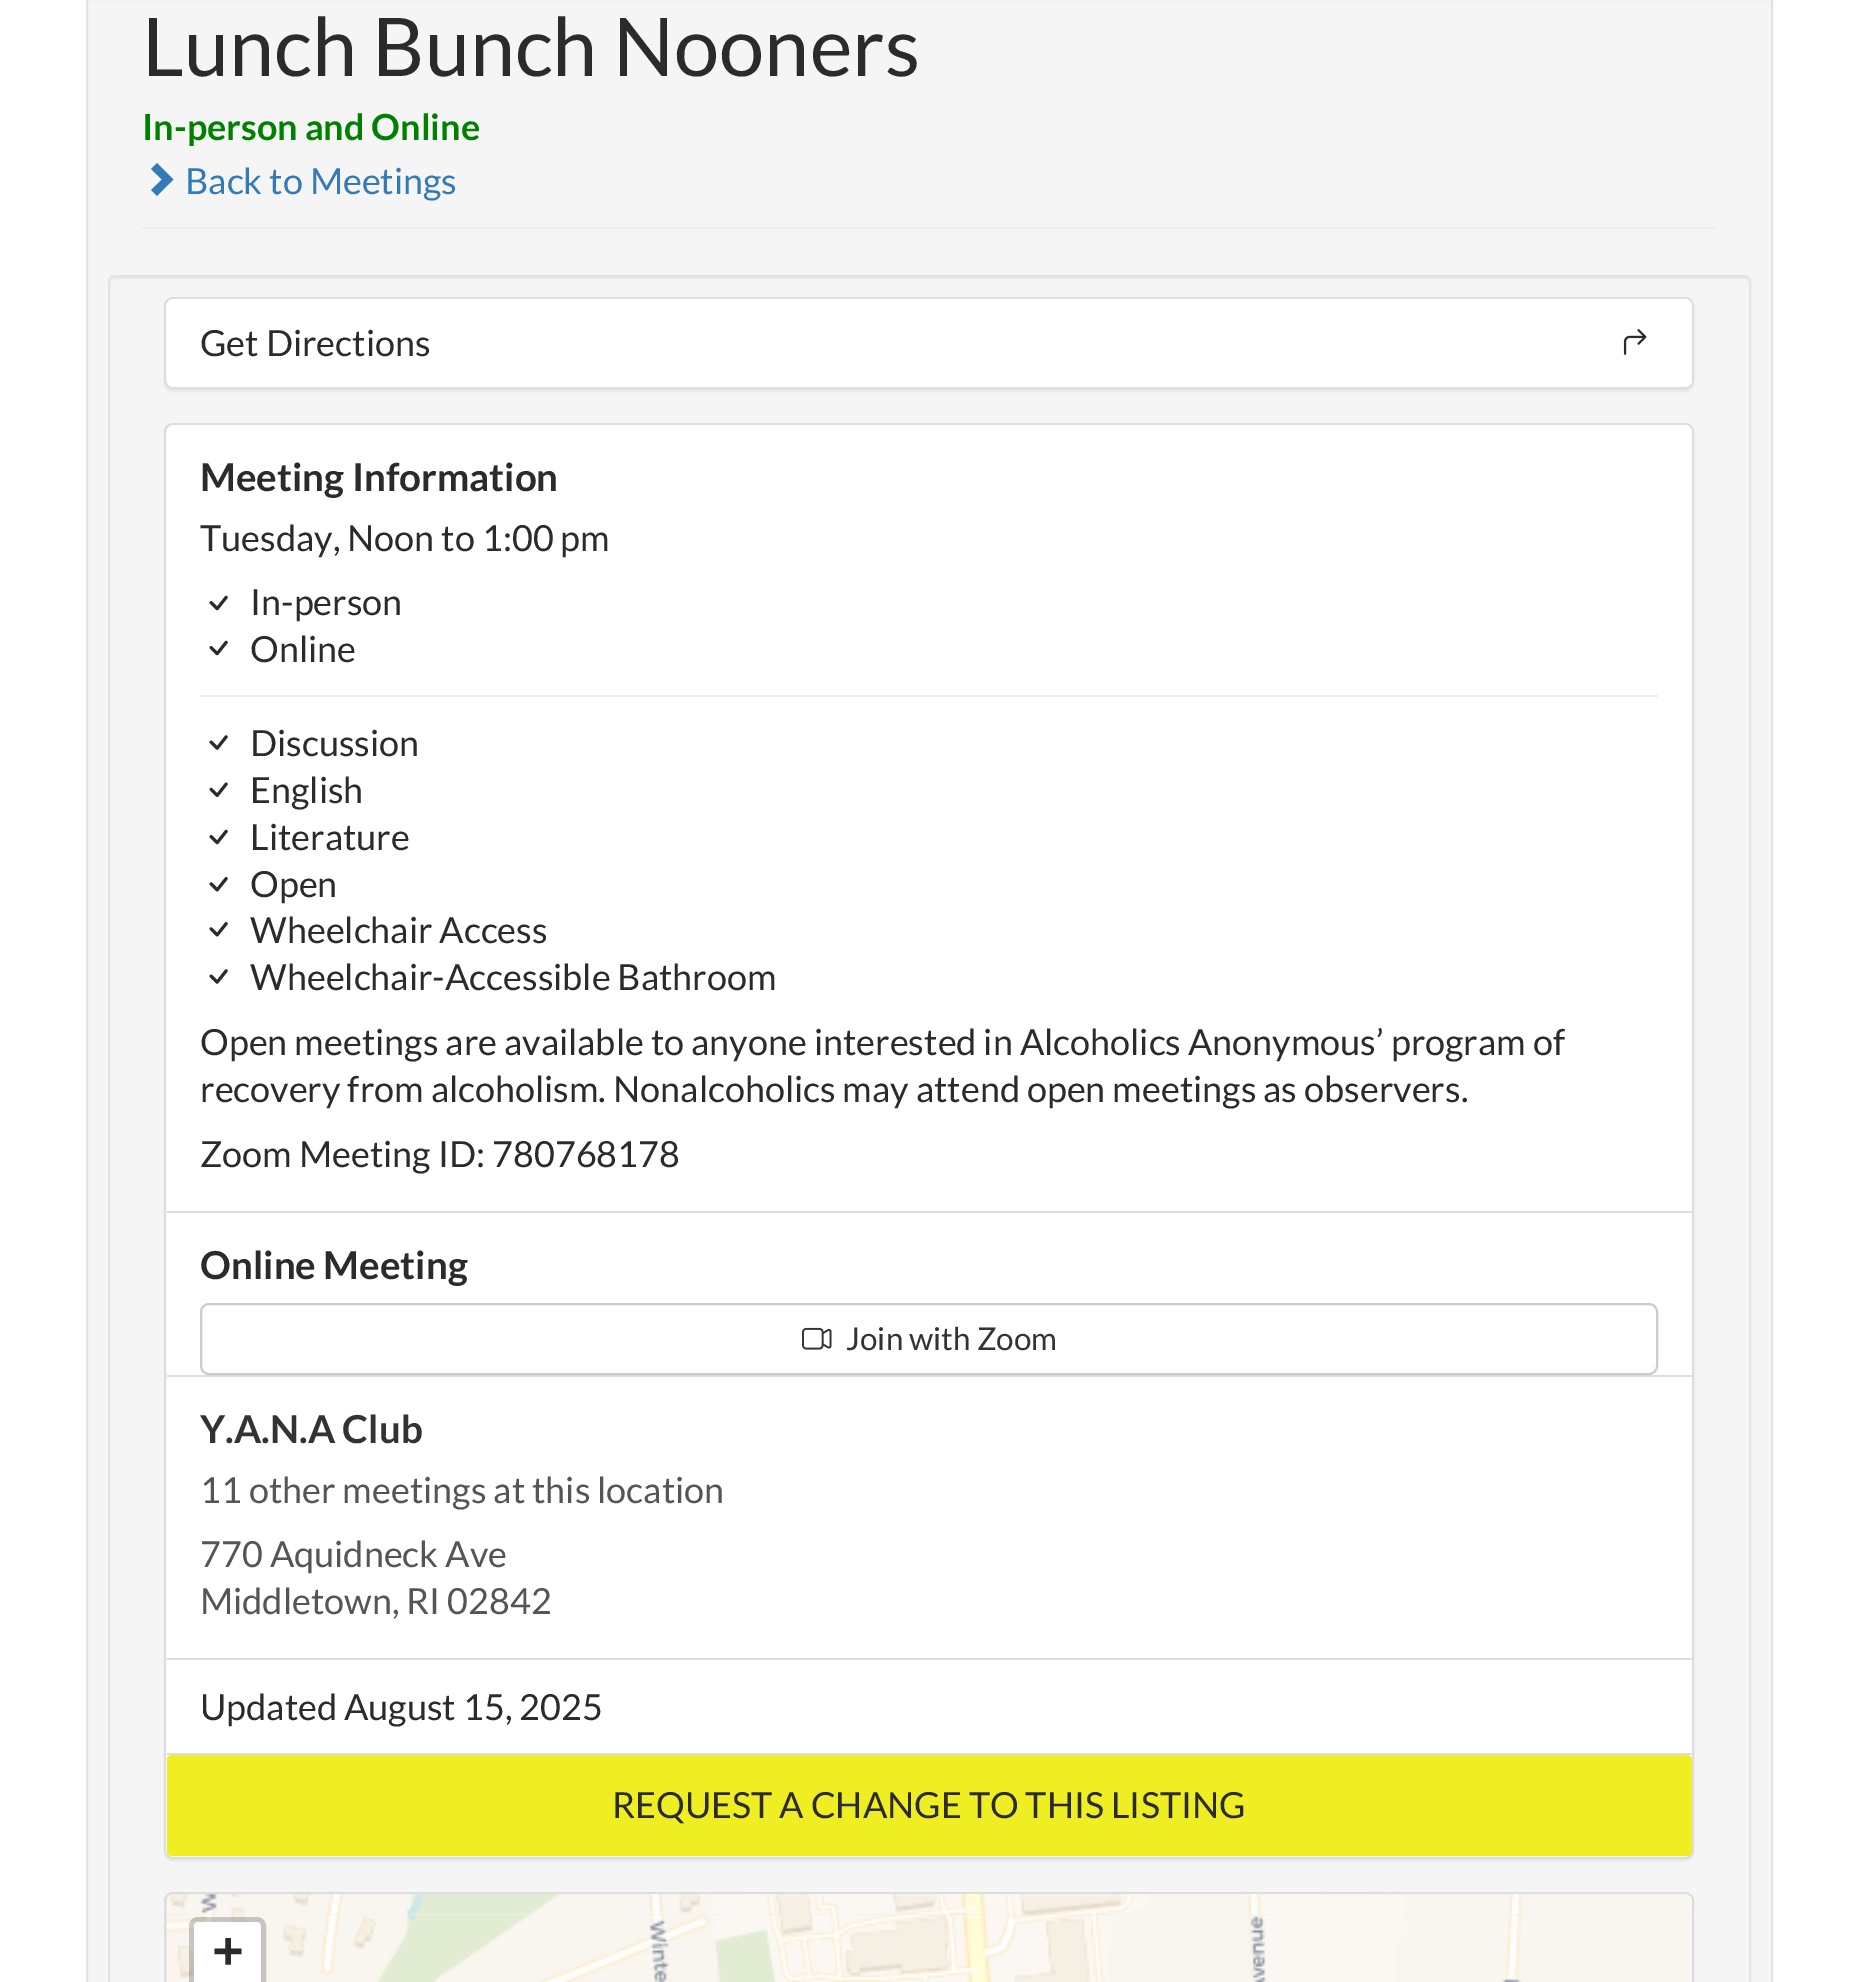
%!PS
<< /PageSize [1857 1982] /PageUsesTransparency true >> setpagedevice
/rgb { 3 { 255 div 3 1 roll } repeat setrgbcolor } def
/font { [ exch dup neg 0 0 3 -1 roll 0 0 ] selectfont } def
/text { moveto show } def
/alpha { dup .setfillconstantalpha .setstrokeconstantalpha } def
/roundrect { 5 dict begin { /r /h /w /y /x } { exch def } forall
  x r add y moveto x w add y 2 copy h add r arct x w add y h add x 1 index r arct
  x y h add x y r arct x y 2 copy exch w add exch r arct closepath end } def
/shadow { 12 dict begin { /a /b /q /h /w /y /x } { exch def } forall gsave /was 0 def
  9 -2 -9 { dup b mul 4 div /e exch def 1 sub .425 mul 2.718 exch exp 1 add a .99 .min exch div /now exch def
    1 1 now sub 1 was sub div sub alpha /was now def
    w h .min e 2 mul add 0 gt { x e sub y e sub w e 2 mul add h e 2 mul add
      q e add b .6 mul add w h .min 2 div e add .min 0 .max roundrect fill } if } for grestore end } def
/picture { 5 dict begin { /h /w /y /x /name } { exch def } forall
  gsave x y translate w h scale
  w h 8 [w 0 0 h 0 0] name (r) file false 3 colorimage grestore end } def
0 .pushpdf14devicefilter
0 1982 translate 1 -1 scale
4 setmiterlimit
255 255 255 rgb
0 0 1857 1982 rectfill
245 245 245 rgb
87 -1 moveto 1685 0 rlineto 0 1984 rlineto -1685 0 rlineto closepath gsave fill grestore
227 227 227 rgb
2 setlinewidth
stroke
238 238 238 rgb
142 227 1575 2 rectfill
51 122 183 rgb
173.5 179.5 moveto -16.5 16.5 rlineto -6 -6 rlineto 11 -10.5 rlineto -11 -10.5 rlineto 6 -6 rlineto closepath fill
233 233 233 rgb
115 279 moveto 1629 0 rlineto 2 0 4 2 4 5 rcurveto 0 -3 -1 -7 -5 -7 rcurveto -1628 0 rlineto -4 0 -5 4 -5 7 rcurveto 0 -3 2 -5 5 -5 rcurveto closepath fill
227 227 227 rgb
109 276 1641 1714 6 roundrect stroke
0 0 0 rgb
164 299 1530 93 9 1 0.05 shadow
255 255 255 rgb
165 298 1528 90 8 roundrect gsave fill grestore
221 221 221 rgb
stroke
255 255 255 rgb
167 299 1525 88 7 roundrect fill
(img_01.rgb) 1623 329 24 26 picture
0 0 0 rgb
164 425 1530 1436 9 1 0.05 shadow
255 255 255 rgb
165 424 1528 1434 8 roundrect gsave fill grestore
221 221 221 rgb
stroke
255 255 255 rgb
174 425 moveto 1511 0 rlineto 4 0 7 3 7 7 rcurveto 0 781 rlineto -1525 0 rlineto 0 -781 rlineto 0 -4 3 -7 7 -7 rcurveto closepath fill
221 221 221 rgb
167 1211 1525 2 rectfill
(img_02.rgb) 209 595 19 16 picture
(img_02.rgb) 209 640 19 16 picture
238 238 238 rgb
200 695 1458 2 rectfill
(img_03.rgb) 209 735 19 15 picture
(img_04.rgb) 209 782 19 15 picture
(img_02.rgb) 209 829 19 16 picture
(img_05.rgb) 209 877 19 15 picture
(img_05.rgb) 209 922 19 15 picture
(img_03.rgb) 209 969 19 15 picture
221 221 221 rgb
167 1375 1525 2 rectfill
204 204 204 rgb
201 1304 1456 70 8 roundrect stroke
(img_06.rgb) 802 1327 30 23 picture
221 221 221 rgb
167 1658 1525 2 rectfill
167 1753 1525 2 rectfill
238 238 34 rgb
167 1755 1525 101 5 roundrect fill
238 238 238 rgb
165 1893 1528 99 8 roundrect gsave fill grestore
221 221 221 rgb
stroke
(img_07.rgb) 167 1894 576 21 picture
(img_08.rgb) 743 1894 576 21 picture
(img_09.rgb) 1319 1894 373 21 picture
(img_10.rgb) 167 1915 576 67 picture
(img_11.rgb) 743 1915 576 67 picture
(img_12.rgb) 1319 1915 373 67 picture
0.2 alpha
0 0 0 rgb
5 setlinewidth
191.5 1919.5 72 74 6.5 roundrect stroke
1 alpha
255 255 255 rgb
199 1922 moveto 57 0 rlineto 3 0 5 2 5 5 rcurveto 0 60 rlineto -67 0 rlineto 0 -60 rlineto 0 -3 2 -5 5 -5 rcurveto closepath fill
/Lato-Regular 81 font
43 43 43 rgb
(Lunch Bunch Nooners) 142 76 text
/Lato-Bold 36 font
0 128 0 rgb
(In-person and Online) 142 140 text
/Lato-Regular 36 font
51 122 183 rgb
(Back to Meetings) 185 194 text
43 43 43 rgb
(Get Directions) 200 356 text
/Lato-Bold 38.5 font
(Meeting Information) 200 491 text
/Lato-Regular 36 font
(Tuesday, Noon to 1:00 pm) 200 551 text
(In-person) 250 615 text
(Online) 250 662 text
(Discussion) 250 756 text
(English) 250 803 text
(Literature) 250 850 text
(Open) 250 897 text
(Wheelchair Access) 250 943 text
(Wheelchair-Accessible Bathroom) 250 990 text
(Open meetings are available to anyone interested in Alcoholics Anonymous’ program of) 200 1055 text
(recovery from alcoholism. Nonalcoholics may attend open meetings as observers.) 200 1102 text
(Zoom Meeting ID: 780768178) 200 1167 text
/Lato-Bold 38.5 font
(Online Meeting) 200 1279 text
/Lato-Regular 31.5 font
51 51 51 rgb
(Join with Zoom) 846 1350 text
/Lato-Bold 38.5 font
(Y.A.N.A Club) 200 1443 text
/Lato-Regular 36 font
85 85 85 rgb
(11 other meetings at this location) 200 1503 text
(770 Aquidneck Ave) 200 1567 text
(Middletown, RI 02842) 200 1614 text
43 43 43 rgb
(Updated August 15, 2025) 200 1720 text
(REQUEST A CHANGE TO THIS LISTING) 612 1818 text
/DejaVuSansMono-Bold 50 font
(+) 213 1967 text
.poppdf14devicefilter showpage
